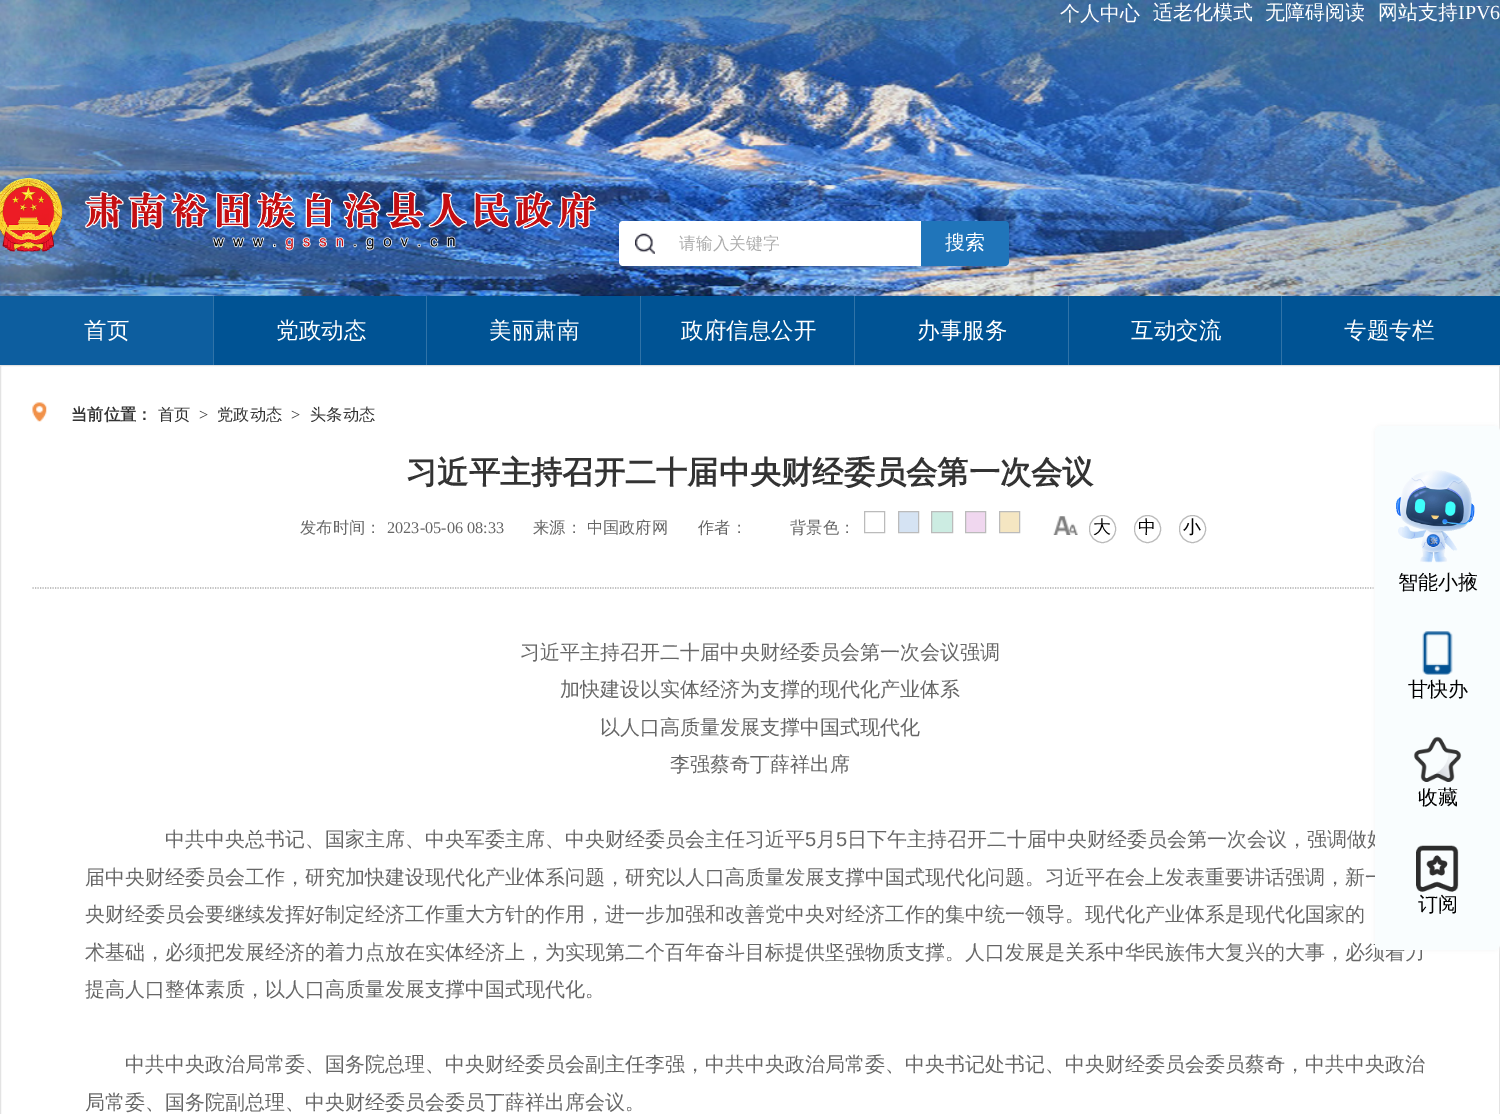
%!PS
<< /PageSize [1500 1114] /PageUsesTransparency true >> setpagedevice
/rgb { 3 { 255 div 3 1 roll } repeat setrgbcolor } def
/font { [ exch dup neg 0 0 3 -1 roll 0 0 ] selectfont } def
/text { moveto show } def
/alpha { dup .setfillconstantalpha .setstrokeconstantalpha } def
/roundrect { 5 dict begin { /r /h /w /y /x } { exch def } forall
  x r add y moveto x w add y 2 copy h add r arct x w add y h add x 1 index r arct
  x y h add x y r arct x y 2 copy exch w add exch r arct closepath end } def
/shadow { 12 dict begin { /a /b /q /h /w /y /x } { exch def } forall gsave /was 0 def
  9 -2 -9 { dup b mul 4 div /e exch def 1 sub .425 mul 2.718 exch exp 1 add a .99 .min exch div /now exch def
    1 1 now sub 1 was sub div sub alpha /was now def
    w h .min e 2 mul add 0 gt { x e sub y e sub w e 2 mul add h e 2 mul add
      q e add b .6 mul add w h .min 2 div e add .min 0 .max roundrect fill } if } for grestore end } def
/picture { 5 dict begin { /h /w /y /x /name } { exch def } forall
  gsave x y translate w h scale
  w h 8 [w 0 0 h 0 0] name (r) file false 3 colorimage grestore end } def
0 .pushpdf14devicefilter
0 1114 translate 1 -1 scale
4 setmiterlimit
255 255 255 rgb
0 0 1500 1114 rectfill
(img_01.rgb) 0 0 1500 296 picture
(img_02.rgb) 0 178 597 74 picture
623 221 moveto 306 0 rlineto 0 45 rlineto -306 0 rlineto -2 0 -4 -2 -4 -4 rcurveto 0 -37 rlineto 0 -2 2 -4 4 -4 rcurveto closepath fill
(img_03.rgb) 635 233 20 21 picture
32 117 186 rgb
921 221 moveto 84 0 rlineto 2 0 4 2 4 4 rcurveto 0 37 rlineto 0 2 -2 4 -4 4 rcurveto -84 0 rlineto closepath fill
0 83 148 rgb
214 296 1286 69 rectfill
13 94 159 rgb
0 296 213 69 rectfill
48 115 168 rgb
213 296 1 69 rectfill
426 296 1 69 rectfill
640 296 1 69 rectfill
854 296 1 69 rectfill
1068 296 1 69 rectfill
1281 296 1 69 rectfill
227 227 227 rgb
0.5 365.5 1499 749 rectstroke
(img_04.rgb) 32 402 15 20 picture
187 187 187 rgb
864.5 511.5 20 21 rectstroke
213 227 243 rgb
898.5 511.5 moveto 20 0 rlineto 0 21 rlineto -20 0 rlineto closepath gsave fill grestore
187 187 187 rgb
stroke
204 236 226 rgb
931.5 511.5 moveto 21 0 rlineto 0 21 rlineto -21 0 rlineto closepath gsave fill grestore
187 187 187 rgb
stroke
240 215 239 rgb
965.5 511.5 moveto 20 0 rlineto 0 21 rlineto -20 0 rlineto closepath gsave fill grestore
187 187 187 rgb
stroke
245 230 194 rgb
999.5 511.5 moveto 20 0 rlineto 0 21 rlineto -20 0 rlineto closepath gsave fill grestore
187 187 187 rgb
stroke
(img_05.rgb) 1053 516 25 19 picture
1089.5 515.5 26 27 13 roundrect stroke
1134.5 515.5 26 27 13 roundrect stroke
1179.5 515.5 26 27 13 roundrect stroke
170 170 170 rgb
1.2 setlinewidth
[1.25 1.25] 0 setdash
32.5 588 moveto 1435 0 rlineto stroke
243 243 243 rgb
1375 426 125 524 6 3 1 shadow
/WenQuanYiZenHei-Medium 20 font
255 255 255 rgb
(个人中心) 1060 20 text
(适老化模式) 1153 19 text
(无障碍阅读) 1265 19 text
(网站支持) 1378 19 text
/LiberationSerif-Regular 20 font
(IPV6) 1458 19 text
/WenQuanYiZenHei-Medium 16.75 font
172 172 172 rgb
(请输入关键字) 679 249 text
/WenQuanYiZenHei-Medium 20 font
255 255 255 rgb
(搜索) 945 249 text
/WenQuanYiZenHei-Medium 22.5 font
(首页) 84 338 text
(党政动态) 276 338 text
(美丽肃南) 489 338 text
(政府信息公开) 681 338 text
(办事服务) 917 338 text
(互动交流) 1131 338 text
(专题专栏) 1344 338 text
/WenQuanYiZenHei-Bold 16.25 font
51 51 51 rgb
(当前位置：) 71 420 text
/WenQuanYiZenHei-Medium 16.25 font
(首页) 158 420 text
/LiberationSerif-Regular 16.25 font
(>) 199 420 text
/WenQuanYiZenHei-Medium 16.25 font
(党政动态) 217 420 text
/LiberationSerif-Regular 16.25 font
(>) 291 420 text
/WenQuanYiZenHei-Medium 16.25 font
(头条动态) 310 420 text
/WenQuanYiZenHei-Bold 31.25 font
(习近平主持召开二十届中央财经委员会第一次会议) 406 483 text
/WenQuanYiZenHei-Medium 16.25 font
102 102 102 rgb
(发布时间：) 300 533 text
/LiberationSerif-Regular 16.25 font
(2023-05-06 08:33) 387 533 text
/WenQuanYiZenHei-Medium 16.25 font
(来源： 中国政府网) 533 533 text
(作者：) 698 533 text
(背景色：) 790 533 text
/WenQuanYiZenHei-Medium 18 font
0 0 0 rgb
(大) 1093 533 text
(中) 1138 533 text
(小) 1183 533 text
/WenQuanYiZenHei-Medium 20 font
102 102 102 rgb
(习近平主持召开二十届中央财经委员会第一次会议强调) 520 659 text
(加快建设以实体经济为支撑的现代化产业体系) 560 696 text
(以人口高质量发展支撑中国式现代化) 600 734 text
(李强蔡奇丁薛祥出席) 670 771 text
(中共中央总书记、国家主席、中央军委主席、中央财经委员会主任习近平) 165 846 text
/LiberationSans-Regular 20 font
(5) 805 846 text
/WenQuanYiZenHei-Medium 20 font
(月) 816 846 text
/LiberationSans-Regular 20 font
(5) 836 846 text
/WenQuanYiZenHei-Medium 20 font
(日下午主持召开二十届中央财经委员会第一次会议，强调做好) 847 846 text
(届中央财经委员会工作，研究加快建设现代化产业体系问题，研究以人口高质量发展支撑中国式现代化问题。习近平在会上发表重要讲话强调，新一) 85 884 text
(央财经委员会要继续发挥好制定经济工作重大方针的作用，进一步加强和改善党中央对经济工作的集中统一领导。现代化产业体系是现代化国家的) 85 921 text
(术基础，必须把发展经济的着力点放在实体经济上，为实现第二个百年奋斗目标提供坚强物质支撑。人口发展是关系中华民族伟大复兴的大事，必须着力) 85 959 text
(提高人口整体素质，以人口高质量发展支撑中国式现代化。) 85 996 text
(中共中央政治局常委、国务院总理、中央财经委员会副主任李强，中共中央政治局常委、中央书记处书记、中央财经委员会委员蔡奇，中共中央政治) 125 1071 text
(局常委、国务院副总理、中央财经委员会委员丁薛祥出席会议。) 85 1109 text
249 253 254 rgb
1375 426 125 524 6 roundrect fill
(img_06.rgb) 1396 470 79 93 picture
0 0 0 rgb
(智能小掖) 1398 589 text
(img_07.rgb) 1422 631 31 44 picture
(甘快办) 1408 696 text
(img_08.rgb) 1413 736 49 46 picture
(收藏) 1418 804 text
(img_09.rgb) 1416 845 43 47 picture
(订阅) 1418 911 text
.poppdf14devicefilter showpage
